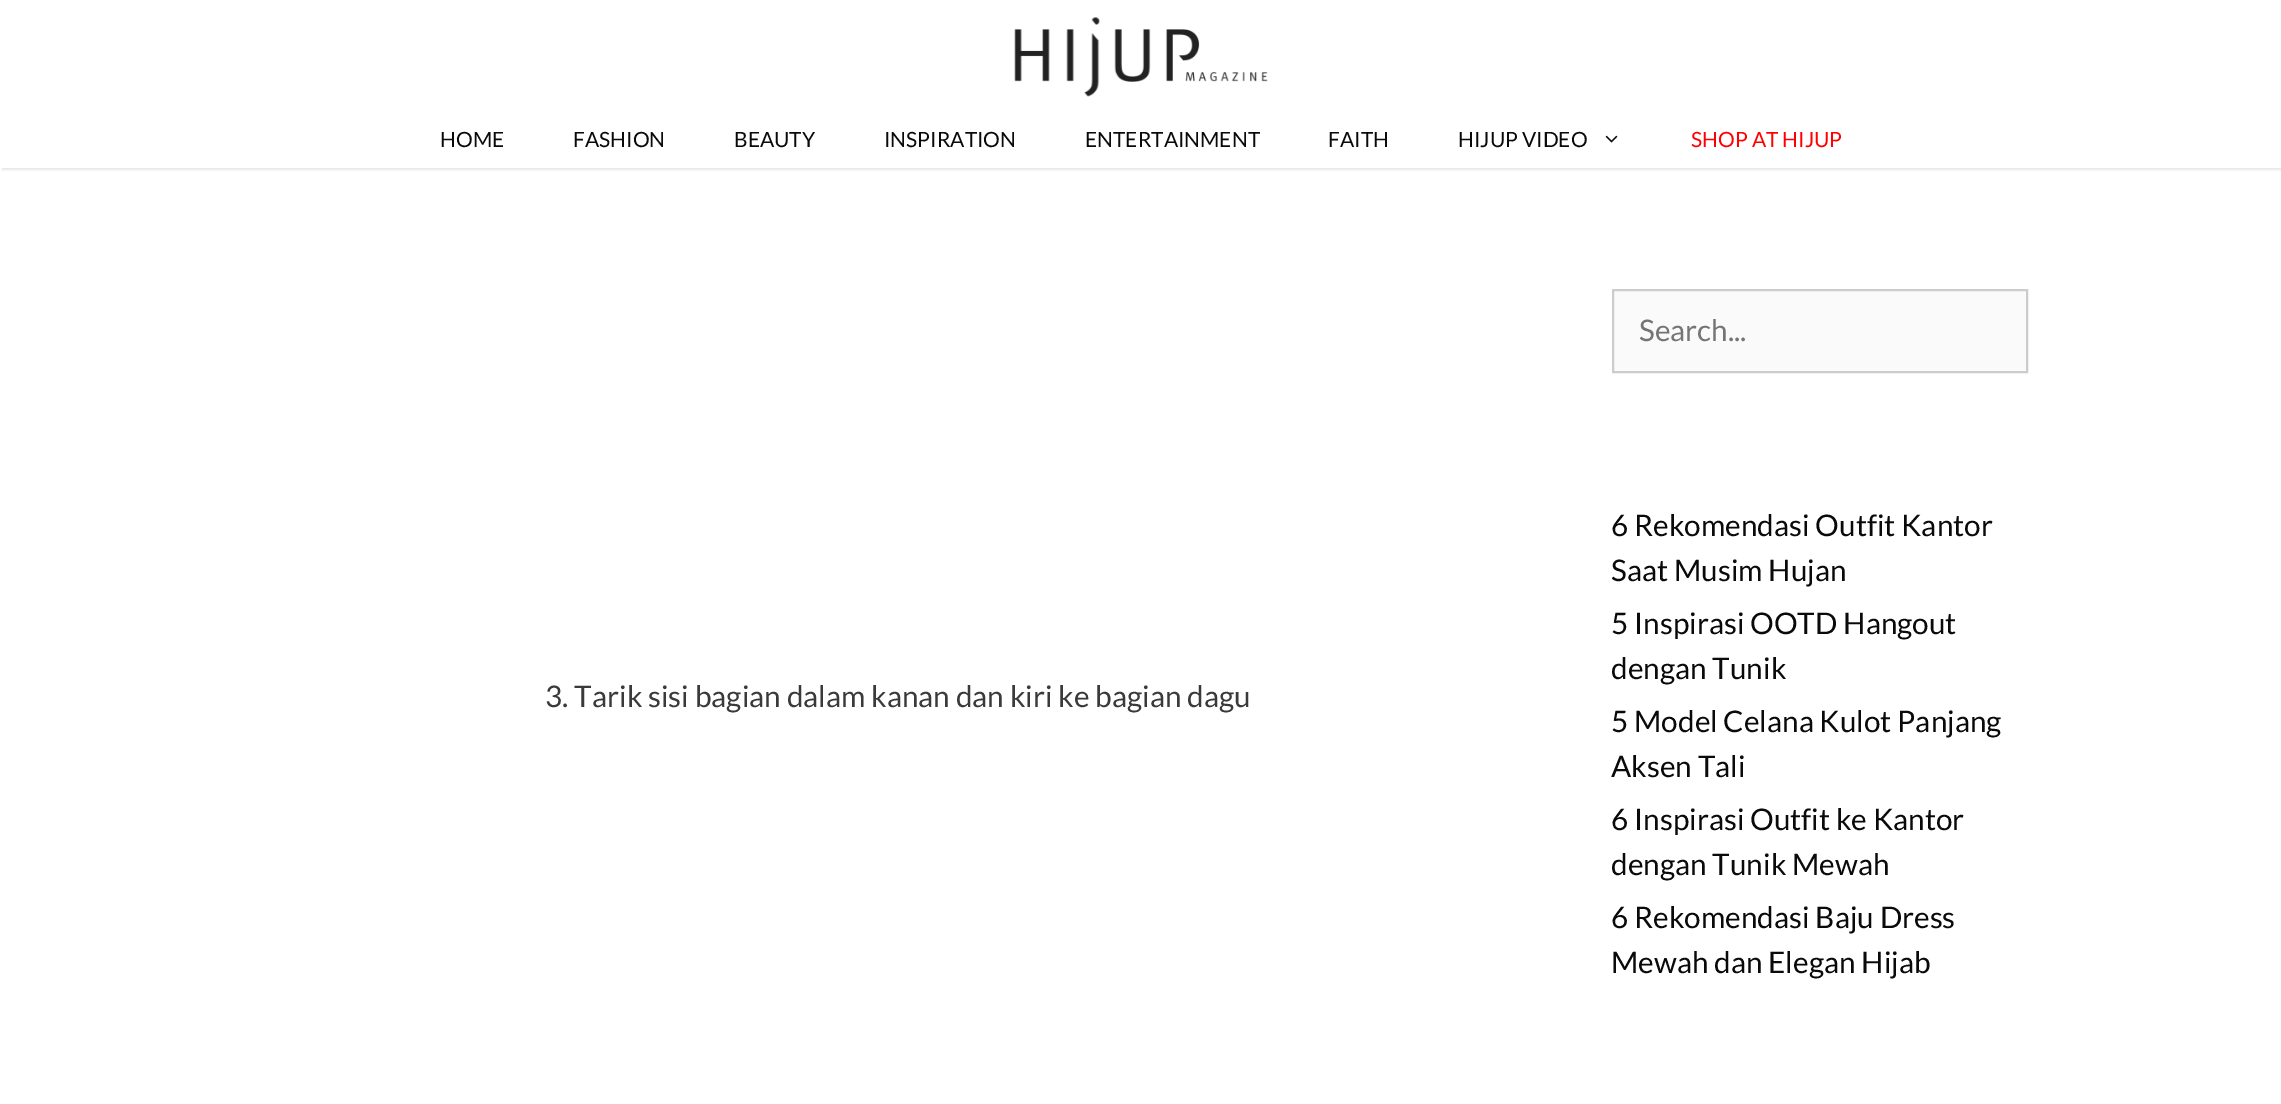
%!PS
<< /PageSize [2281 1104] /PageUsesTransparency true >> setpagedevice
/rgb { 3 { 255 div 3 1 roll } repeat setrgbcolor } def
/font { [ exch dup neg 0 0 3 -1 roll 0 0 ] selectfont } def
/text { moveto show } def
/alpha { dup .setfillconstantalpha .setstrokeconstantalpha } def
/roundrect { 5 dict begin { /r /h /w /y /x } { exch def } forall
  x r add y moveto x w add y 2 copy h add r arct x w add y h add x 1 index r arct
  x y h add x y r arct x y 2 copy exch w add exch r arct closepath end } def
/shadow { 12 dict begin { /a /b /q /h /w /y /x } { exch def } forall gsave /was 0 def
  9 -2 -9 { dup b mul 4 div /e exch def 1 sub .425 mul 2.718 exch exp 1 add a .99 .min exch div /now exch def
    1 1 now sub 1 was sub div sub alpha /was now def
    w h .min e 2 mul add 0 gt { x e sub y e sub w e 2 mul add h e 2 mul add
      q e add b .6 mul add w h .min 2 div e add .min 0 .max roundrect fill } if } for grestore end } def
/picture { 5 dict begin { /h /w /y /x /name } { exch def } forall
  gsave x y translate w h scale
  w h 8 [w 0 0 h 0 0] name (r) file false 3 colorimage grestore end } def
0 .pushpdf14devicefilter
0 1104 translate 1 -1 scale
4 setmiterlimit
255 255 255 rgb
0 0 2281 1104 rectfill
gsave
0 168 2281 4 rectclip
230 230 230 rgb
2 2 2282 168 0 1 1 shadow
grestore
(img_01.rgb) 1014 17 254 80 picture
(img_02.rgb) 1605 135 13 8 picture
250 250 250 rgb
1613 290 moveto 414 0 rlineto 0 82 rlineto -414 0 rlineto closepath gsave fill grestore
204 204 204 rgb
2 setlinewidth
stroke
/Lato-Regular 21 font
10 10 10 rgb
(HOME) 440 147 text
(FASHION) 573 147 text
(BEAUTY) 734 147 text
(INSPIRATION) 884 147 text
(ENTERTAINMENT) 1085 147 text
(FAITH) 1328 147 text
(HIJUP VIDEO) 1458 147 text
255 0 0 rgb
(SHOP AT HIJUP) 1691 147 text
/Lato-Regular 29.75 font
58 58 58 rgb
(3. Tarik sisi bagian dalam kanan dan kiri ke bagian dagu) 545 707 text
117 117 117 rgb
(Search...) 1639 341 text
10 10 10 rgb
(6 Rekomendasi Outfit Kantor) 1611 536 text
(Saat Musim Hujan) 1611 581 text
(5 Inspirasi OOTD Hangout) 1611 634 text
(dengan Tunik) 1611 679 text
(5 Model Celana Kulot Panjang) 1611 732 text
(Aksen Tali) 1611 777 text
(6 Inspirasi Outfit ke Kantor) 1611 830 text
(dengan Tunik Mewah) 1611 875 text
(6 Rekomendasi Baju Dress) 1611 928 text
(Mewah dan Elegan Hijab) 1611 973 text
.poppdf14devicefilter showpage
